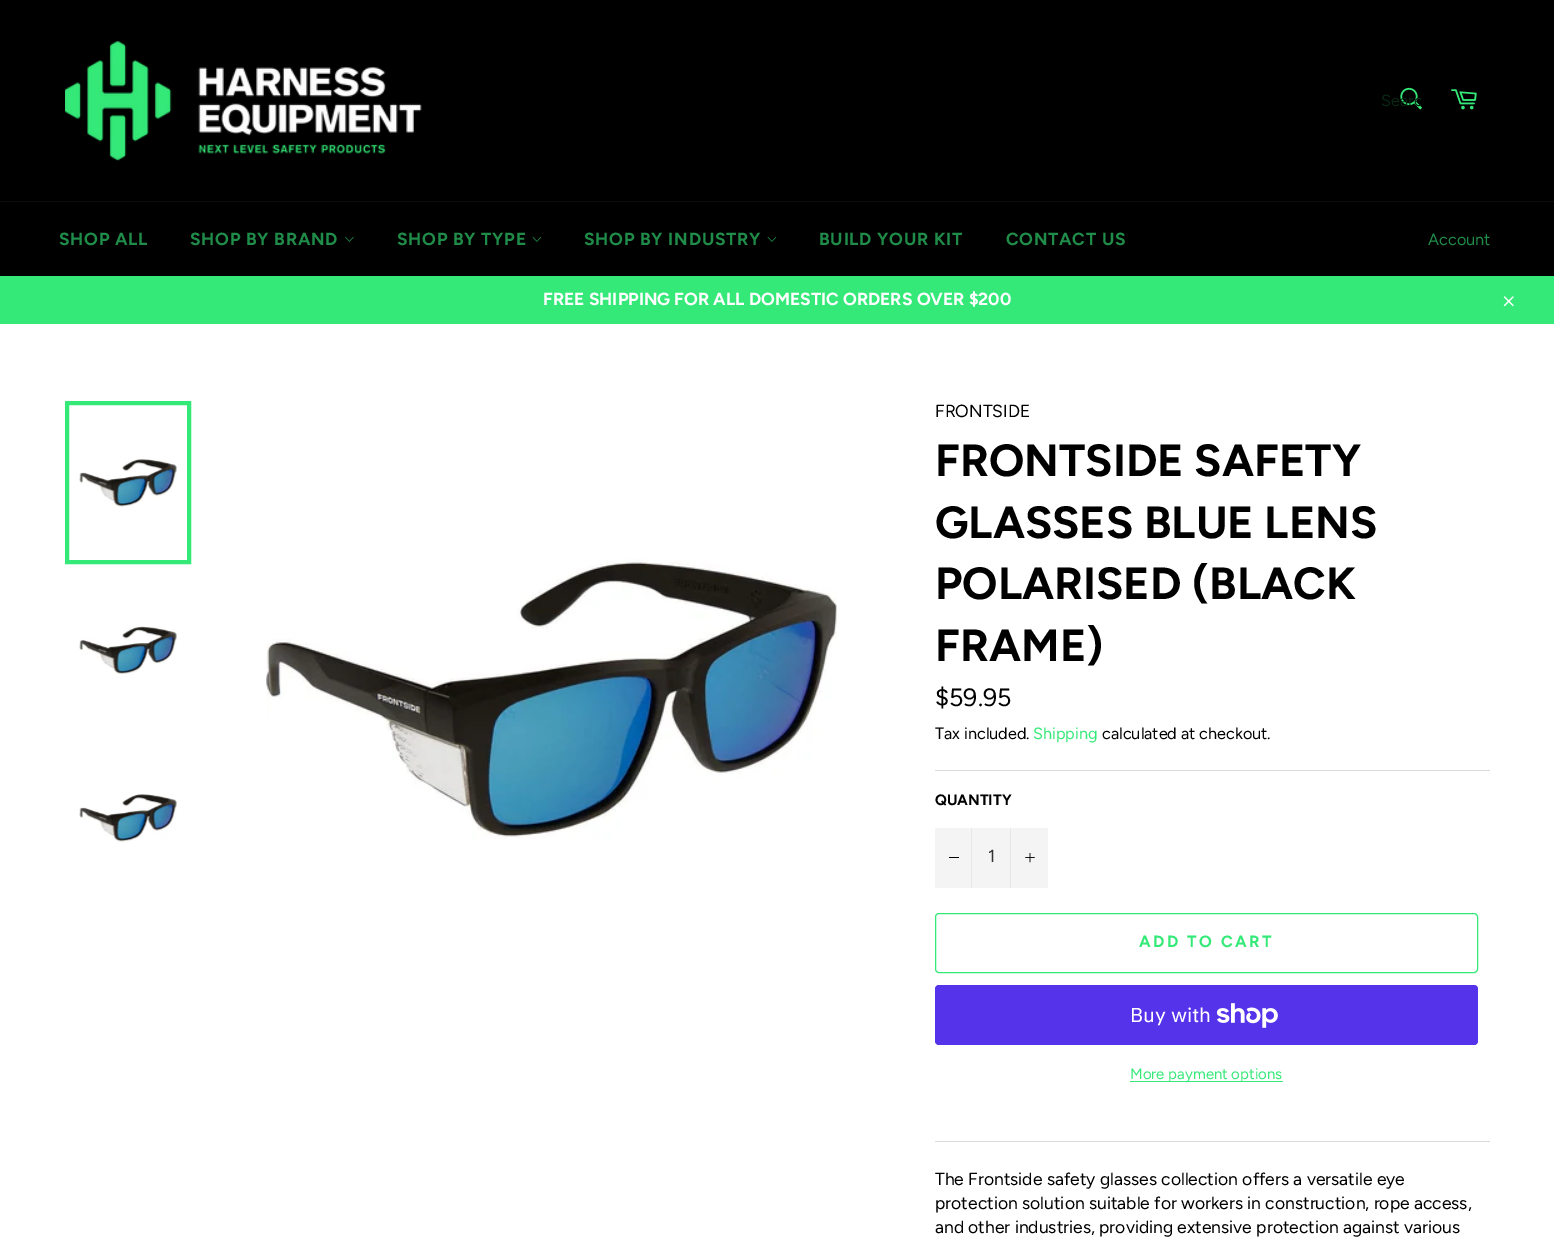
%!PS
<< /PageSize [1554 1249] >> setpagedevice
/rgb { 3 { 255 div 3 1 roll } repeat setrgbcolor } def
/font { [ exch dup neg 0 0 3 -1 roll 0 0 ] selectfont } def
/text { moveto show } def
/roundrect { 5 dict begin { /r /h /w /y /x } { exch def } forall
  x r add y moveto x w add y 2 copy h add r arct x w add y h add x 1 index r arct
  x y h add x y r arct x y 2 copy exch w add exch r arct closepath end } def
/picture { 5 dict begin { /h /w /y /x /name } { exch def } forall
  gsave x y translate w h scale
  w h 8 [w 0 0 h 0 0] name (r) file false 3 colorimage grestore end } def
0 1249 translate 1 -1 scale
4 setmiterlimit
0 0 0 rgb
0 0 1554 1249 rectfill
(img_01.rgb) 65 41 357 120 picture
(img_02.rgb) 1400 87 22 23 picture
(img_03.rgb) 1451 89 26 21 picture
13 13 13 rgb
0 201 1554 1 rectfill
(img_04.rgb) 345 236 9 6 picture
(img_05.rgb) 532 236 10 6 picture
(img_05.rgb) 767 236 10 6 picture
53 233 121 rgb
0 276 1554 48 rectfill
(img_06.rgb) 1503 296 11 11 picture
255 255 255 rgb
0 324 1554 925 rectfill
(img_07.rgb) 79 459 98 48 picture
53 233 121 rgb
4 setlinewidth
67 403 122 159 rectstroke
(img_08.rgb) 79 626 98 49 picture
(img_09.rgb) 79 794 98 48 picture
(img_10.rgb) 266 559 571 280 picture
219 219 219 rgb
935 770 555 1 rectfill
244 244 244 rgb
935 828 113 60 rectfill
231 231 231 rgb
971 828 1 60 rectfill
0 0 0 rgb
949 857 10 1 rectfill
231 231 231 rgb
1010 828 1 60 rectfill
(img_11.rgb) 1025 853 10 10 picture
53 233 121 rgb
1 setlinewidth
935.5 913.5 542 59 3.5 roundrect stroke
84 51 235 rgb
935 985 543 60 4 roundrect fill
(img_12.rgb) 1216 1003 62 25 picture
53 233 121 rgb
1130 1081 153 1 rectfill
219 219 219 rgb
935 1141 555 1 rectfill
gsave
1381 91 40 19 rectclip
/Figtree-Regular 16.25 font
9 39 20 rgb
(Searc) 1381 106 text
grestore
/Figtree-Bold 17.5 font
32 140 73 rgb
59 245 moveto 0.75 0 (SHOP ALL) ashow
190 245 moveto 0.75 0 (SHOP BY BRAND) ashow
397 245 moveto 0.75 0 (SHOP BY TYPE) ashow
584 245 moveto 0.75 0 (SHOP BY INDUSTRY) ashow
819 245 moveto 0.75 0 (BUILD YOUR KIT) ashow
1006 245 moveto 0.75 0 (CONTACT US) ashow
/Figtree-Regular 16.25 font
(Account) 1428 245 text
/Figtree-Bold 17.5 font
255 255 255 rgb
(FREE SHIPPING FOR ALL DOMESTIC ORDERS OVER $200) 543 305 text
/Figtree-Regular 17.5 font
0 0 0 rgb
(FRONTSIDE) 935 417 text
/Figtree-Bold 45 font
(FRONTSIDE SAFETY) 935 476 text
(GLASSES BLUE LENS) 935 538 text
(POLARISED \(BLACK) 935 599 text
(FRAME\)) 935 661 text
/Figtree-Regular 25 font
($59.95) 935 706 text
/Figtree-Regular 16.25 font
(Tax included.) 935 739 text
53 233 121 rgb
(Shipping) 1033 739 text
0 0 0 rgb
(calculated at checkout.) 1102 739 text
/Figtree-Bold 15 font
(QUANTITY) 935 805 text
/Figtree-Regular 17.5 font
51 51 51 rgb
(1) 988 862 text
/Figtree-Bold 16.25 font
53 233 121 rgb
1139 947 moveto 2.5 0 (ADD TO CART) ashow
/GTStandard-Regular 20 font
255 255 255 rgb
(Buy with) 1130 1022 text
/Figtree-Regular 15 font
53 233 121 rgb
(More payment options) 1130 1079 text
/Figtree-Regular 17.5 font
0 0 0 rgb
(The Frontside safety glasses collection offers a versatile eye) 935 1185 text
(protection solution suitable for workers in construction, rope access,) 935 1209 text
(and other industries, providing extensive protection against various) 935 1233 text
showpage
